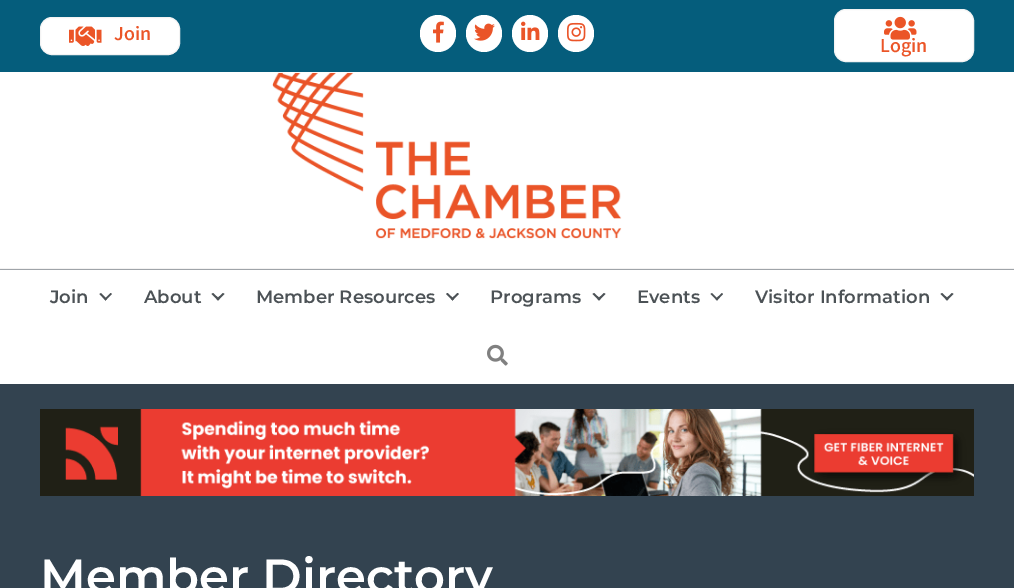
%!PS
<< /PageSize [1014 588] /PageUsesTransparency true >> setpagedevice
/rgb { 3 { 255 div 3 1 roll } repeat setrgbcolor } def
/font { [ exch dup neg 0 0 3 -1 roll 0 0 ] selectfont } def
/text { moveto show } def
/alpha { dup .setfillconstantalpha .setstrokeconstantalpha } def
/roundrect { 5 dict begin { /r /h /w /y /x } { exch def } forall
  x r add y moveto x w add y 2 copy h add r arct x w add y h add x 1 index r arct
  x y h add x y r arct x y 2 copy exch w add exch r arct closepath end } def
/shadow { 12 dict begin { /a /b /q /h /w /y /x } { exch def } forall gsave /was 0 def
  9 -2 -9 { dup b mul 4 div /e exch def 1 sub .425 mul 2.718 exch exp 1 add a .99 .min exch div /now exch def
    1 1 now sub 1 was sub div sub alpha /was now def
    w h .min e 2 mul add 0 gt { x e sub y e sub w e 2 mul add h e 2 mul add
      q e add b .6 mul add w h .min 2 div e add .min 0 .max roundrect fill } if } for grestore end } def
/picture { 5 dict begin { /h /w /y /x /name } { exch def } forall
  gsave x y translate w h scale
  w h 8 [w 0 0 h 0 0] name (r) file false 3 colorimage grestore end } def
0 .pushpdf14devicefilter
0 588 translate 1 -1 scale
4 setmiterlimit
255 255 255 rgb
0 0 1014 588 rectfill
5 93 124 rgb
0 0 1014 72 rectfill
255 255 255 rgb
40.5 17.5 139 37 11.5 roundrect gsave fill grestore
243 243 243 rgb
stroke
(img_01.rgb) 69 26 33 20 picture
255 255 255 rgb
420 15 36 37 18 roundrect fill
(img_02.rgb) 433 21 11 22 picture
466 15 36 37 18 roundrect fill
(img_03.rgb) 474 23 21 18 picture
512 15 36 37 18 roundrect fill
(img_04.rgb) 521 21 19 19 picture
558 15 36 37 18 roundrect fill
(img_05.rgb) 567 22 19 20 picture
834.5 9.5 139 52 11.5 roundrect gsave fill grestore
243 243 243 rgb
stroke
(img_06.rgb) 884 16 33 24 picture
176 182 187 rgb
0 269 1014 1 rectfill
(img_07.rgb) 272 72 350 167 picture
gsave
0 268 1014 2 rectclip
33 29 30 rgb
0 270 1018 118 0 1.5 0.28 shadow
grestore
76 82 86 rgb
110.5 293 moveto 1.5 1 rlineto -6.5 6.5 rlineto -1 -1.5 rlineto closepath fill
101 293 moveto 6 6 rlineto -1.5 1.5 rlineto -6 -6.5 rlineto closepath fill
223 293 moveto 1.5 1 rlineto -6.5 6.5 rlineto -1.5 -1.5 rlineto closepath fill
213 293 moveto 6.5 6 rlineto -1.5 1.5 rlineto -6.5 -6.5 rlineto closepath fill
457.5 293 moveto 1.5 1 rlineto -6.5 6.5 rlineto -1.5 -1.5 rlineto closepath fill
447.5 293 moveto 6.5 6 rlineto -1.5 1.5 rlineto -6.5 -6.5 rlineto closepath fill
604 293 moveto 1.5 1 rlineto -6.5 6.5 rlineto -1.5 -1.5 rlineto closepath fill
594 293 moveto 6.5 6 rlineto -1.5 1.5 rlineto -6.5 -6.5 rlineto closepath fill
722 293 moveto 1 1 rlineto -6 6.5 rlineto -1.5 -1.5 rlineto closepath fill
712 293 moveto 6 6 rlineto -1 1.5 rlineto -6.5 -6.5 rlineto closepath fill
952 293 moveto 1.5 1 rlineto -6.5 6.5 rlineto -1.5 -1.5 rlineto closepath fill
942 293 moveto 6.5 6 rlineto -1.5 1.5 rlineto -6.5 -6.5 rlineto closepath fill
(img_08.rgb) 487 344 21 22 picture
51 67 80 rgb
0 384 1014 204 rectfill
(img_09.rgb) 40 409 934 87 picture
/Varta-Bold 20 font
235 85 39 rgb
(Join) 114 40 text
(Login) 880 52 text
/Montserrat-SemiBold 18 font
76 82 86 rgb
(Join) 50 303 text
(About) 144 303 text
(Member Resources) 256 303 text
(Programs) 490 303 text
(Events) 637 303 text
(Visitor Information) 755 303 text
/Montserrat-SemiBold 48 font
255 255 255 rgb
(Member Directory) 40 593 text
.poppdf14devicefilter showpage
